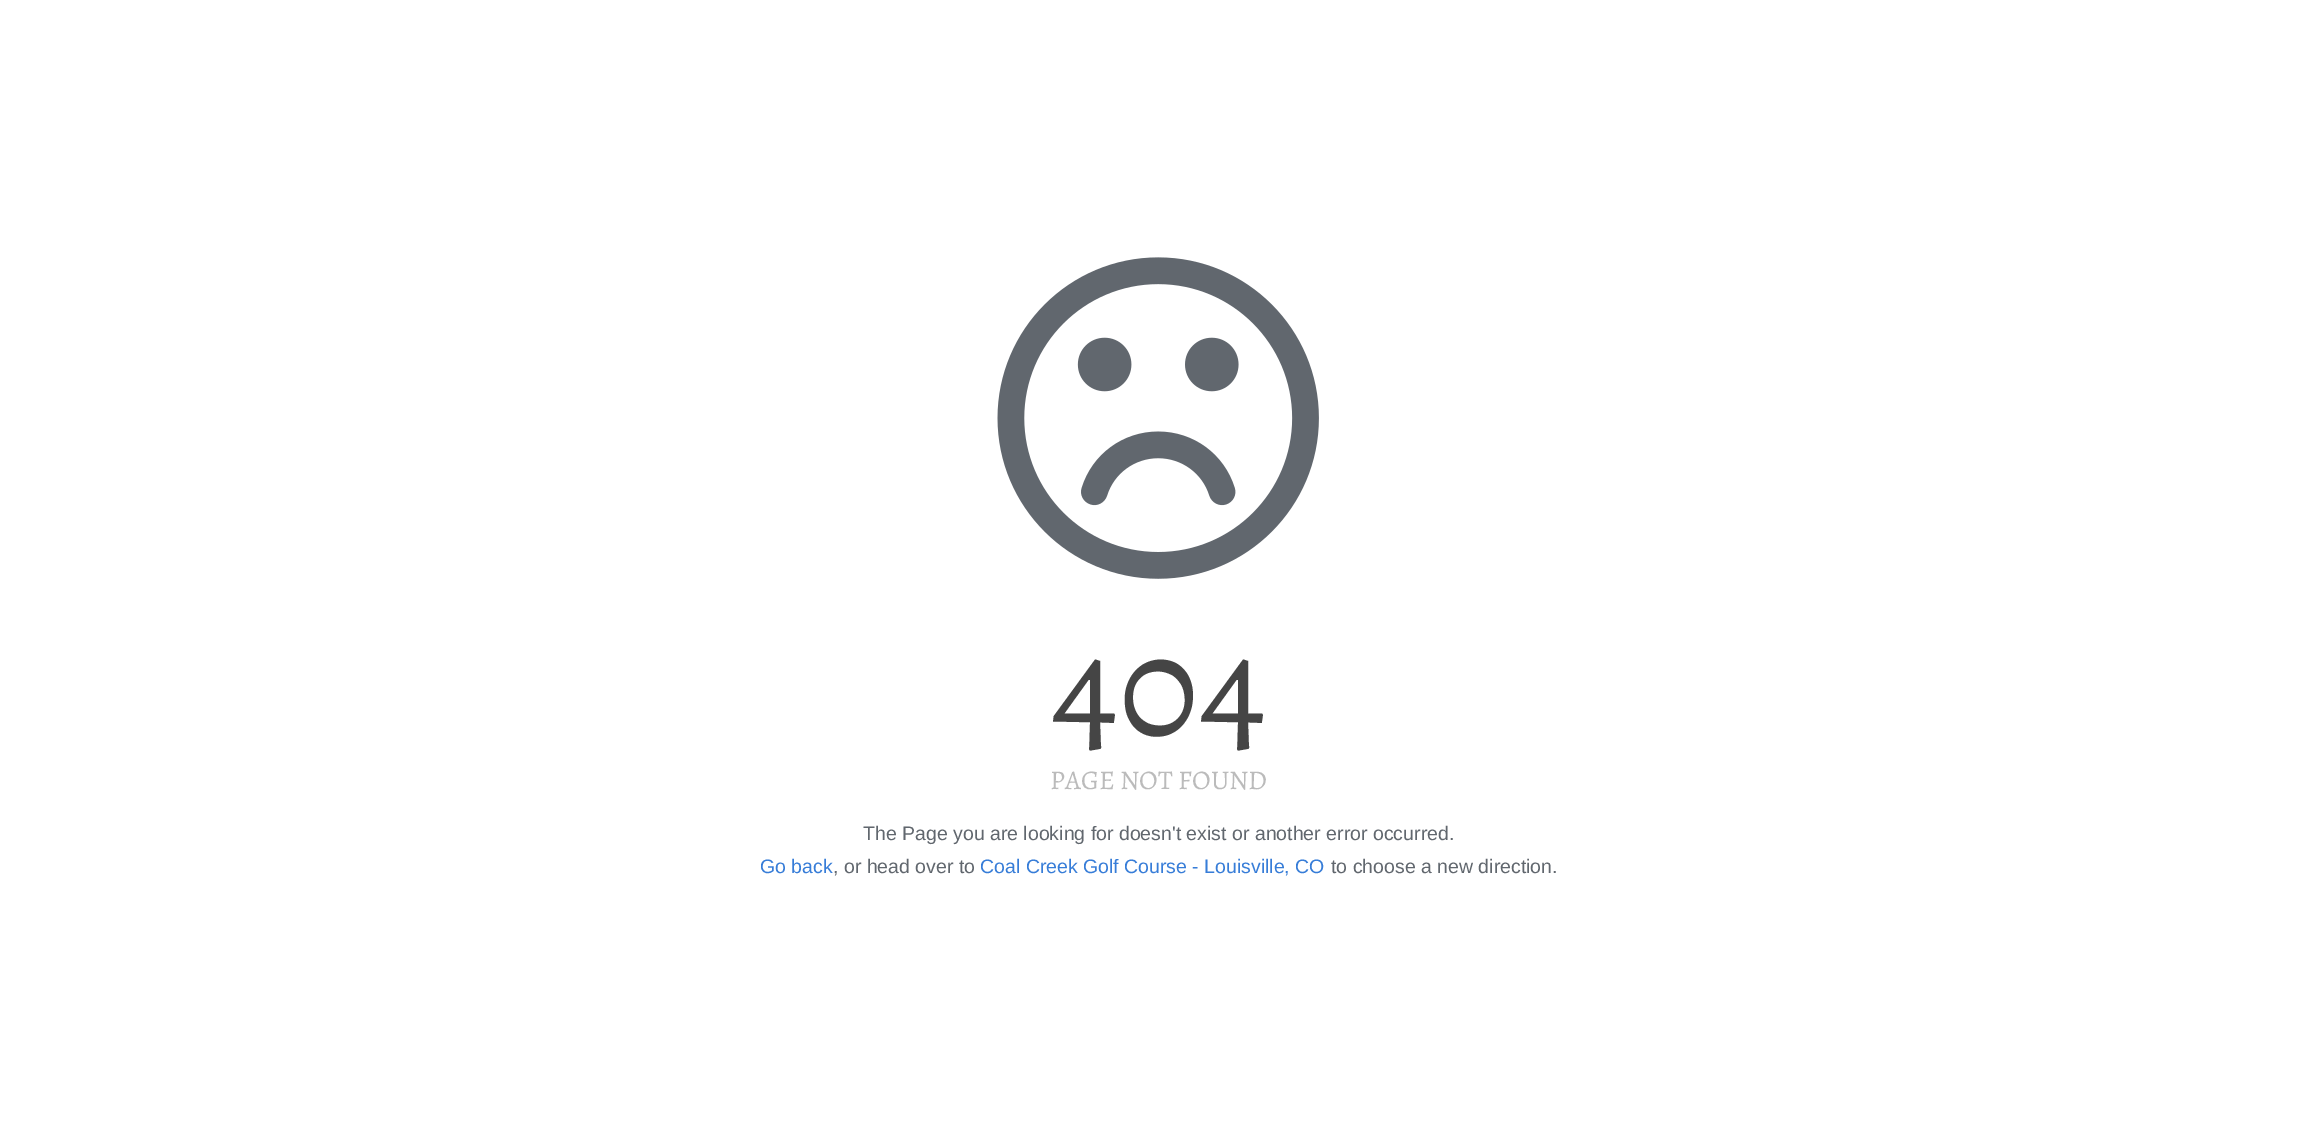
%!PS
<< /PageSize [2317 1137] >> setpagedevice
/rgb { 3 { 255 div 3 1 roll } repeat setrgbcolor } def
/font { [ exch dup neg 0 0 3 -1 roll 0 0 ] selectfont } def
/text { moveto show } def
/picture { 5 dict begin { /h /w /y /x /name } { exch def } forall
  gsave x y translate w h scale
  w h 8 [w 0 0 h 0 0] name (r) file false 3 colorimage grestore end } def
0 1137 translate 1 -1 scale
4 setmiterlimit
255 255 255 rgb
0 0 2317 1137 rectfill
(img_01.rgb) 997 257 322 322 picture
/AlegreyaSC-Regular 150 font
69 69 69 rgb
(404) 1051 735 text
/AlegreyaSC-Regular 27 font
187 187 187 rgb
(PAGE NOT FOUND) 1050 789 text
/LiberationSans-Regular 19.5 font
97 103 110 rgb
(The Page you are looking for doesn't exist or another error occurred.) 863 840 text
55 125 216 rgb
(Go back) 760 873 text
97 103 110 rgb
(, or head over to) 833 873 text
55 125 216 rgb
(Coal Creek Golf Course - Louisville, CO) 980 873 text
97 103 110 rgb
(to choose a new direction.) 1331 873 text
showpage
